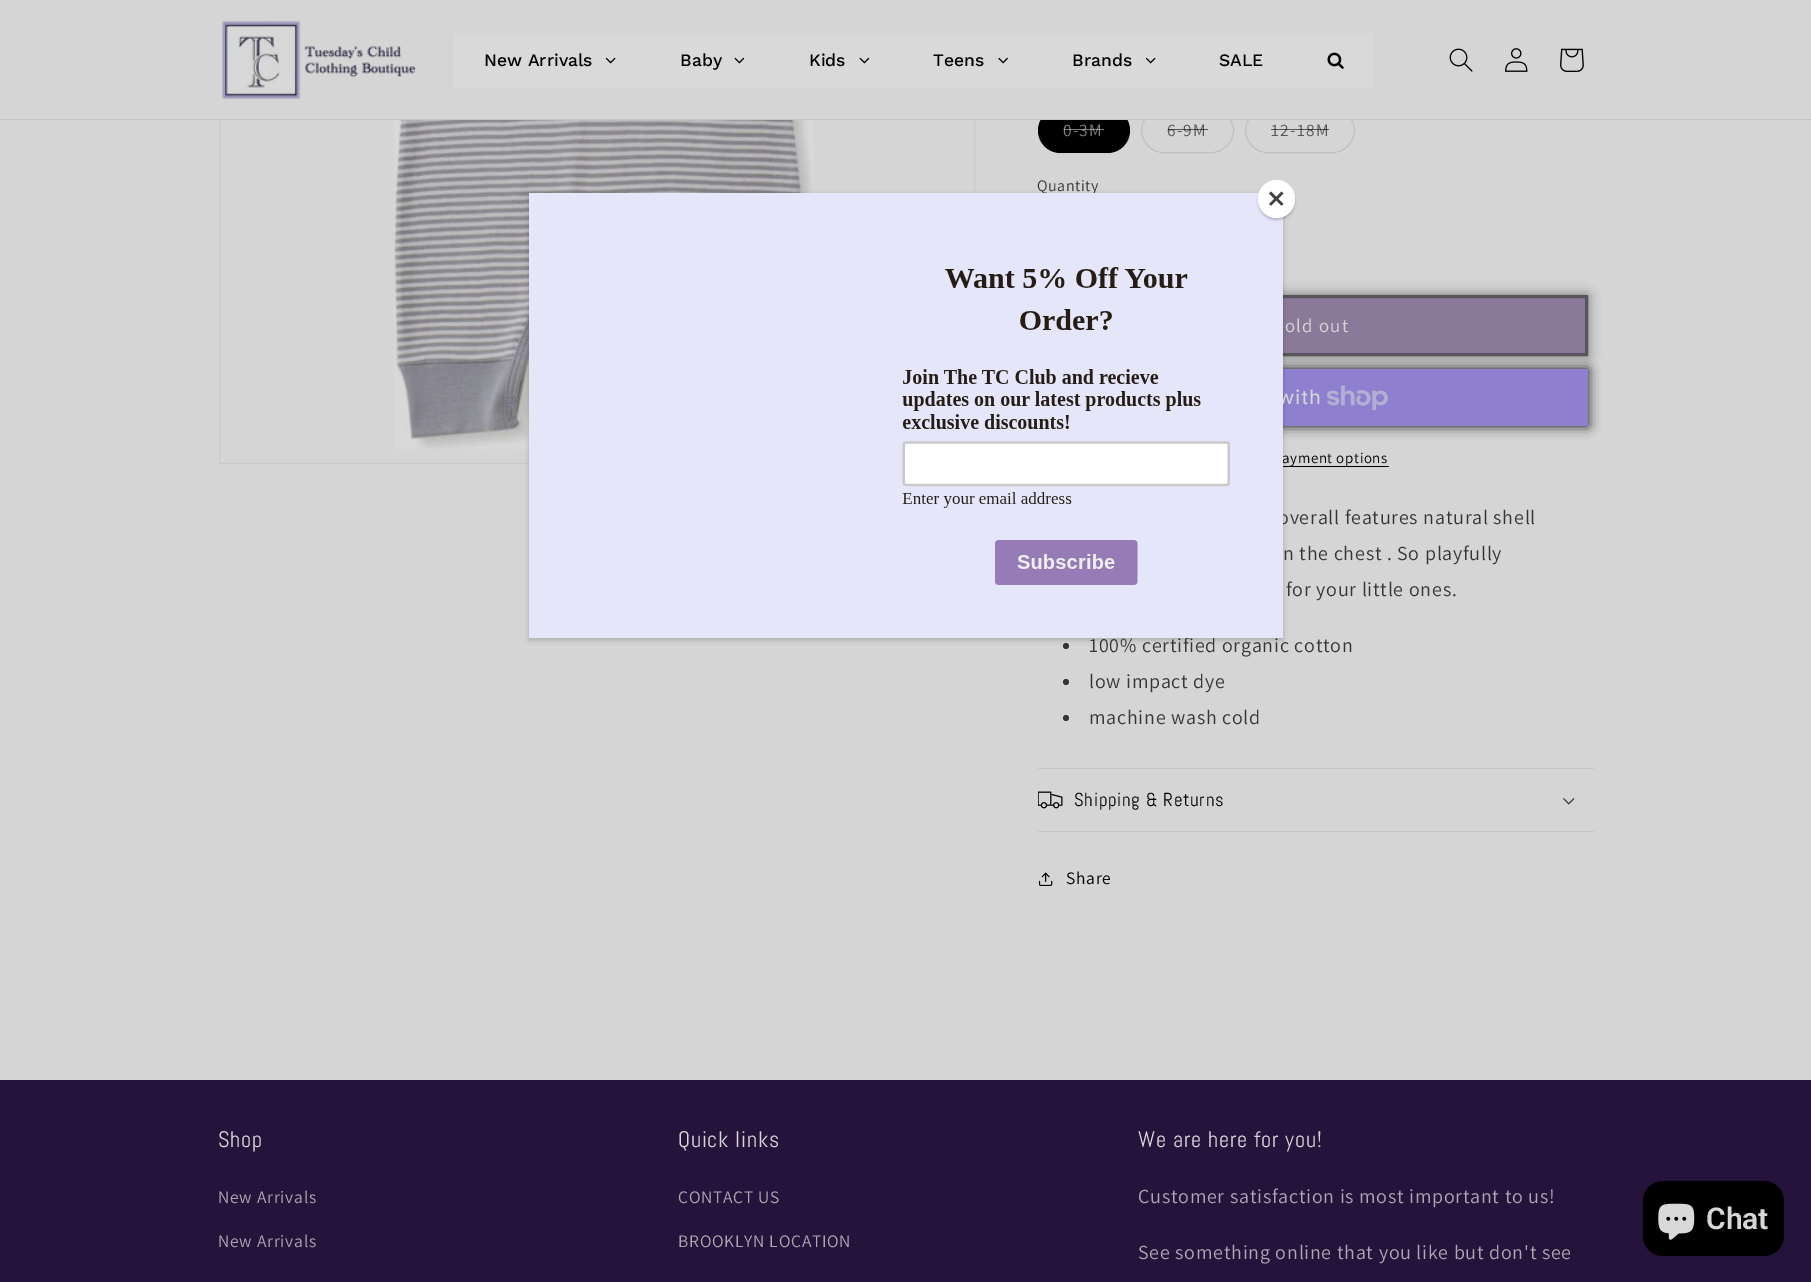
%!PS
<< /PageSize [1811 1282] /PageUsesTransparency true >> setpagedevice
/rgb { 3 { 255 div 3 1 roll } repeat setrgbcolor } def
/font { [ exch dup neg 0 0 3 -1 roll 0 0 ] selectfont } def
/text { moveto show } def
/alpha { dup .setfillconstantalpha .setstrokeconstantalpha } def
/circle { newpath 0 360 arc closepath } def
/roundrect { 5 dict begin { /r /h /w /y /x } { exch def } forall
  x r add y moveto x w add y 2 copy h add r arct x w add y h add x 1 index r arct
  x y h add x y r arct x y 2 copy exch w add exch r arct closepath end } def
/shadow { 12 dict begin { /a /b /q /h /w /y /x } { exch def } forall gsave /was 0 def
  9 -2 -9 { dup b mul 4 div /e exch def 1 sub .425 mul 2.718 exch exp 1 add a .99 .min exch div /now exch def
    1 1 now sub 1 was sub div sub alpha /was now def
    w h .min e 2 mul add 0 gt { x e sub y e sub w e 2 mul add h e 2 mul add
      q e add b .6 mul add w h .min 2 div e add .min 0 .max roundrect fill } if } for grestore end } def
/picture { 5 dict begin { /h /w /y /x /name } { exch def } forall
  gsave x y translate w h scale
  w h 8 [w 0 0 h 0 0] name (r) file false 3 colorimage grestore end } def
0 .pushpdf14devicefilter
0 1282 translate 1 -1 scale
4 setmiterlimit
214 213 214 rgb
0 0 1811 1282 rectfill
139 121 153 rgb
1283 295 305 61 rectfill
203 202 203 rgb
219.5 -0.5 755 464 rectstroke
0 0 0 rgb
1038 108 92 45 22.5 roundrect fill
0.1 alpha
1038.5 108.5 91 44 22 roundrect stroke
1 alpha
193 192 193 rgb
1141.5 108.5 92 44 22 roundrect stroke
1245.5 108.5 109 44 22 roundrect stroke
214 213 214 rgb
219 0 1133 119 rectfill
197 196 197 rgb
0 119 1811 1 rectfill
(img_01.rgb) 222 21 194 78 picture
217 217 217 rgb
453 33 922 55 rectfill
(img_02.rgb) 605 57 11 7 picture
(img_03.rgb) 734 57 11 7 picture
(img_03.rgb) 859 57 11 7 picture
(img_04.rgb) 998 57 10 7 picture
(img_02.rgb) 1145 57 11 7 picture
(img_05.rgb) 1327 52 17 17 picture
(img_06.rgb) 1449 48 24 24 picture
(img_07.rgb) 1505 48 23 24 picture
(img_08.rgb) 1560 48 24 24 picture
(img_09.rgb) 394 120 420 329 picture
gsave
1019 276 moveto 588 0 rlineto 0 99 rlineto -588 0 rlineto closepath 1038 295 moveto 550 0 rlineto 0 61 rlineto -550 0 rlineto closepath eoclip newpath
15 15 15 rgb
1038 295 550 61 0 6 0.5 shadow
grestore
gsave
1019 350 moveto 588 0 rlineto 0 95 rlineto -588 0 rlineto closepath 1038 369 moveto 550 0 rlineto 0 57 rlineto -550 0 rlineto closepath eoclip newpath
15 15 15 rgb
1038 369 550 57 0 6 1 shadow
grestore
0.5 alpha
214 213 214 rgb
3 setlinewidth
1039.5 296.5 547 58 rectstroke
0 0 0 rgb
1039.5 296.5 547 58 rectstroke
71 43 200 rgb
1283 369 305 57 rectfill
1 alpha
(img_10.rgb) 1327 385 61 25 picture
0 0 0 rgb
1283 466 106 1 rectfill
54 54 54 rgb
1066 646 3 circle fill
1066 682 3 circle fill
1066 718 3 circle fill
197 196 197 rgb
1038 768 556 1 rectfill
1038 831 556 1 rectfill
(img_11.rgb) 1038 791 25 18 picture
(img_12.rgb) 1563 798 12 7 picture
(img_13.rgb) 1038 872 15 14 picture
0 0 0 rgb
529 195 754 445 0 2.5 0.2 shadow
37 19 59 rgb
0 1080 1811 202 rectfill
0 0 0 rgb
1643 1181 141 75 20 roundrect fill
(img_15.rgb) 1658 1203 37 37 picture
/WorkSans-Medium 17.5 font
(New Arrivals) 484 66 text
(Baby) 680 66 text
(Kids) 809 66 text
(Teens) 933 66 text
(Brands) 1072 66 text
(SALE) 1219 66 text
/Assistant-Regular 17.5 font
128 128 128 rgb
1063 136 moveto 1.25 0 (0-3M) ashow
0.6 alpha
214 213 214 rgb
1064 129 40 1 rectfill
1 alpha
86 85 86 rgb
1167 136 moveto 1.25 0 (6-9M) ashow
0.6 alpha
0 0 0 rgb
1168 129 40 1 rectfill
1 alpha
86 85 86 rgb
1271 136 moveto 1.25 0 (12-18M) ashow
0.6 alpha
0 0 0 rgb
1271 129 58 1 rectfill
/Assistant-Regular 16 font
1 alpha
54 54 54 rgb
1037 191 moveto 0.5 0 (Quantity) ashow
/Assistant-Regular 18.75 font
216 215 216 rgb
1285 332 moveto 1.25 0 (old out) ashow
/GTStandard-Regular 20 font
1278 404 moveto 0.75 0 (with) ashow
/Assistant-Regular 15 font
0 0 0 rgb
1282 463 moveto 0.6 0 (ayment options) ashow
/Assistant-Regular 20 font
54 54 54 rgb
1278 524 moveto 0.75 0 (overall features natural shell) ashow
1283 560 moveto 0.75 0 (n the chest . So playfully) ashow
1286 596 moveto 0.75 0 (for your little ones.) ashow
1089 652 moveto 0.75 0 (100% certified organic cotton) ashow
1089 688 moveto 0.75 0 (low impact dye) ashow
1089 724 moveto 0.75 0 (machine wash cold) ashow
/Abel-Regular 18.75 font
0 0 0 rgb
1074 806 moveto 0.75 0 (Shipping & Returns) ashow
/Assistant-Regular 17.5 font
1066 884 moveto 0.75 0 (Share) ashow
(img_14.rgb) 529 193 754 445 picture
1258 183 37 37 18.5 1 0.2 shadow
255 255 255 rgb
1258 180 37 38 18.5 roundrect fill
65 65 65 rgb
1281.5 191.5 moveto 2 2 rlineto -12.5 12 rlineto -2 -1.5 rlineto closepath fill
1269 193.5 moveto 2 -2 rlineto 12.5 12.5 rlineto -2 1.5 rlineto closepath fill
/Abel-Regular 22.5 font
216 215 216 rgb
218 1147 moveto 0.75 0 (Shop) ashow
/Assistant-Regular 17.5 font
172 167 178 rgb
218 1203 moveto 0.75 0 (New Arrivals) ashow
218 1247 moveto 0.75 0 (New Arrivals) ashow
/Abel-Regular 22.5 font
216 215 216 rgb
678 1147 moveto 0.75 0 (Quick links) ashow
/Assistant-Regular 17.5 font
172 167 178 rgb
678 1203 moveto 0.75 0 (CONTACT US) ashow
678 1247 moveto 0.75 0 (BROOKLYN LOCATION) ashow
/Abel-Regular 22.5 font
216 215 216 rgb
1138 1147 moveto 0.75 0 (We are here for you!) ashow
/Assistant-Regular 20 font
172 167 178 rgb
1138 1203 moveto 0.75 0 (Customer satisfaction is most important to us!) ashow
1138 1259 moveto 0.75 0 (See something online that you like but don't see) ashow
/Roboto-SemiBold 30 font
216 215 216 rgb
(Chat) 1706 1229 text
.poppdf14devicefilter showpage
